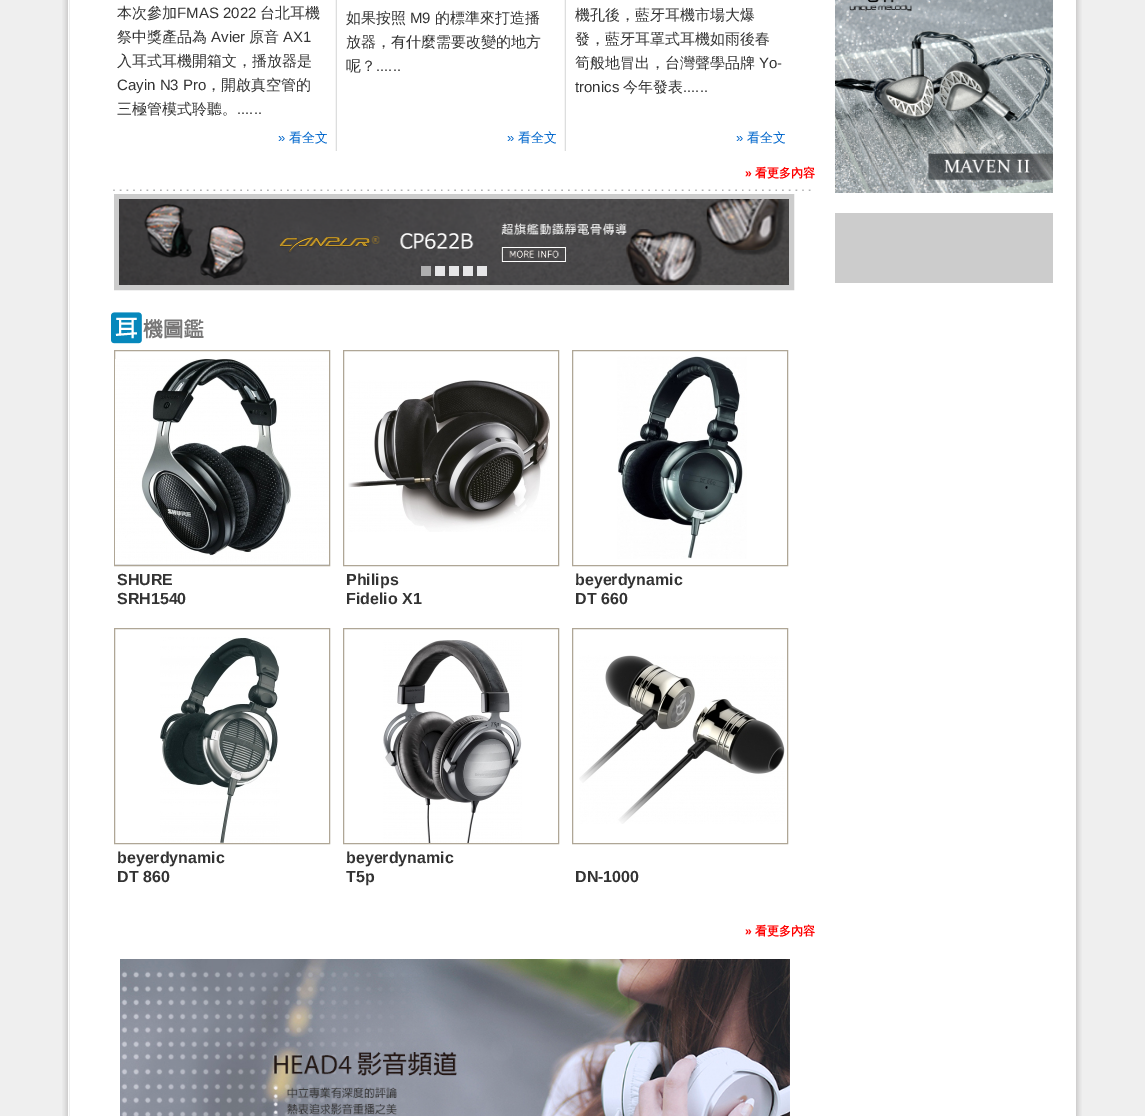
%!PS
<< /PageSize [1145 1116] >> setpagedevice
/rgb { 3 { 255 div 3 1 roll } repeat setrgbcolor } def
/font { [ exch dup neg 0 0 3 -1 roll 0 0 ] selectfont } def
/text { moveto show } def
/picture { 5 dict begin { /h /w /y /x /name } { exch def } forall
  gsave x y translate w h scale
  w h 8 [w 0 0 h 0 0] name (r) file false 3 colorimage grestore end } def
0 1116 translate 1 -1 scale
4 setmiterlimit
239 239 239 rgb
0 0 1145 1116 rectfill
(img_01.rgb) 62 0 7 1116 picture
255 255 255 rgb
70 0 1005 1116 rectfill
(img_02.rgb) 335 0 2 151 picture
(img_02.rgb) 564 0 2 151 picture
(img_03.rgb) 113 189 698 2 picture
204 204 204 rgb
5 setlinewidth
116.5 196.5 675 91 rectstroke
(img_04.rgb) 119 199 670 86 picture
175 175 176 rgb
421 266 10 10 rectfill
230 230 232 rgb
435 266 10 10 rectfill
449 266 10 10 rectfill
463 266 10 10 rectfill
477 266 10 10 rectfill
(img_05.rgb) 111 312 93 32 picture
175 166 150 rgb
1 setlinewidth
114.5 350.5 215 215 rectstroke
(img_06.rgb) 115 359 214 206 picture
343.5 350.5 215 215 rectstroke
(img_07.rgb) 348 380 202 152 picture
572.5 350.5 215 215 rectstroke
(img_08.rgb) 617 356 130 203 picture
114.5 628.5 215 215 rectstroke
(img_09.rgb) 160 637 120 206 picture
343.5 628.5 215 215 rectstroke
(img_10.rgb) 383 640 139 203 picture
572.5 628.5 215 215 rectstroke
(img_11.rgb) 579 655 206 169 picture
(img_12.rgb) 120 959 670 157 picture
(img_13.rgb) 835 0 218 193 picture
204 204 204 rgb
835 213 218 70 rectfill
(img_14.rgb) 1075 0 7 1116 picture
/WenQuanYiZenHei-Medium 15 font
51 51 51 rgb
(本次參加) 117 18 text
/LiberationSans-Regular 15 font
(FMAS 2022) 177 18 text
/WenQuanYiZenHei-Medium 15 font
(台北耳機) 260 18 text
(祭中獎產品為) 117 42 text
/LiberationSans-Regular 15 font
(Avier) 211 42 text
/WenQuanYiZenHei-Medium 15 font
(原音) 249 42 text
/LiberationSans-Regular 15 font
(AX1) 283 42 text
/WenQuanYiZenHei-Medium 15 font
(入耳式耳機開箱文，播放器是) 117 66 text
/LiberationSans-Regular 15 font
(Cayin N3 Pro) 117 90 text
/WenQuanYiZenHei-Medium 15 font
(，開啟真空管的) 206 90 text
(三極管模式聆聽。) 117 114 text
/LiberationSans-Regular 15 font
(......) 237 114 text
/LiberationSans-Regular 13 font
0 102 204 rgb
(») 278 142 text
/WenQuanYiZenHei-Medium 13 font
(看全文) 289 142 text
/WenQuanYiZenHei-Medium 15 font
51 51 51 rgb
(如果按照) 346 23 text
/LiberationSans-Regular 15 font
(M9) 410 23 text
/WenQuanYiZenHei-Medium 15 font
(的標準來打造播) 435 23 text
(放器，有什麼需要改變的地方) 346 47 text
(呢？) 346 71 text
/LiberationSans-Regular 15 font
(......) 376 71 text
/LiberationSans-Regular 13 font
0 102 204 rgb
(») 507 142 text
/WenQuanYiZenHei-Medium 13 font
(看全文) 518 142 text
/WenQuanYiZenHei-Medium 15 font
51 51 51 rgb
(機孔後，藍牙耳機市場大爆) 575 20 text
(發，藍牙耳罩式耳機如雨後春) 575 44 text
(筍般地冒出，台灣聲學品牌) 575 68 text
/LiberationSans-Regular 15 font
(Yo-) 759 68 text
(tronics) 575 92 text
/WenQuanYiZenHei-Medium 15 font
(今年發表) 623 92 text
/LiberationSans-Regular 15 font
(......) 683 92 text
/LiberationSans-Regular 13 font
0 102 204 rgb
(») 736 142 text
/WenQuanYiZenHei-Medium 13 font
(看全文) 747 142 text
/LiberationSans-Bold 12 font
255 0 0 rgb
(») 745 177 text
/WenQuanYiZenHei-Bold 12 font
(看更多內容) 755 177 text
/LiberationSans-Bold 16 font
51 51 51 rgb
(SHURE) 117 585 text
(SRH1540) 117 604 text
(Philips) 346 585 text
(Fidelio X1) 346 604 text
(beyerdynamic) 575 585 text
(DT 660) 575 604 text
(beyerdynamic) 117 863 text
(DT 860) 117 882 text
(beyerdynamic) 346 863 text
(T5p) 346 882 text
(DN-1000) 575 882 text
/LiberationSans-Bold 12 font
255 0 0 rgb
(») 745 935 text
/WenQuanYiZenHei-Bold 12 font
(看更多內容) 755 935 text
showpage
